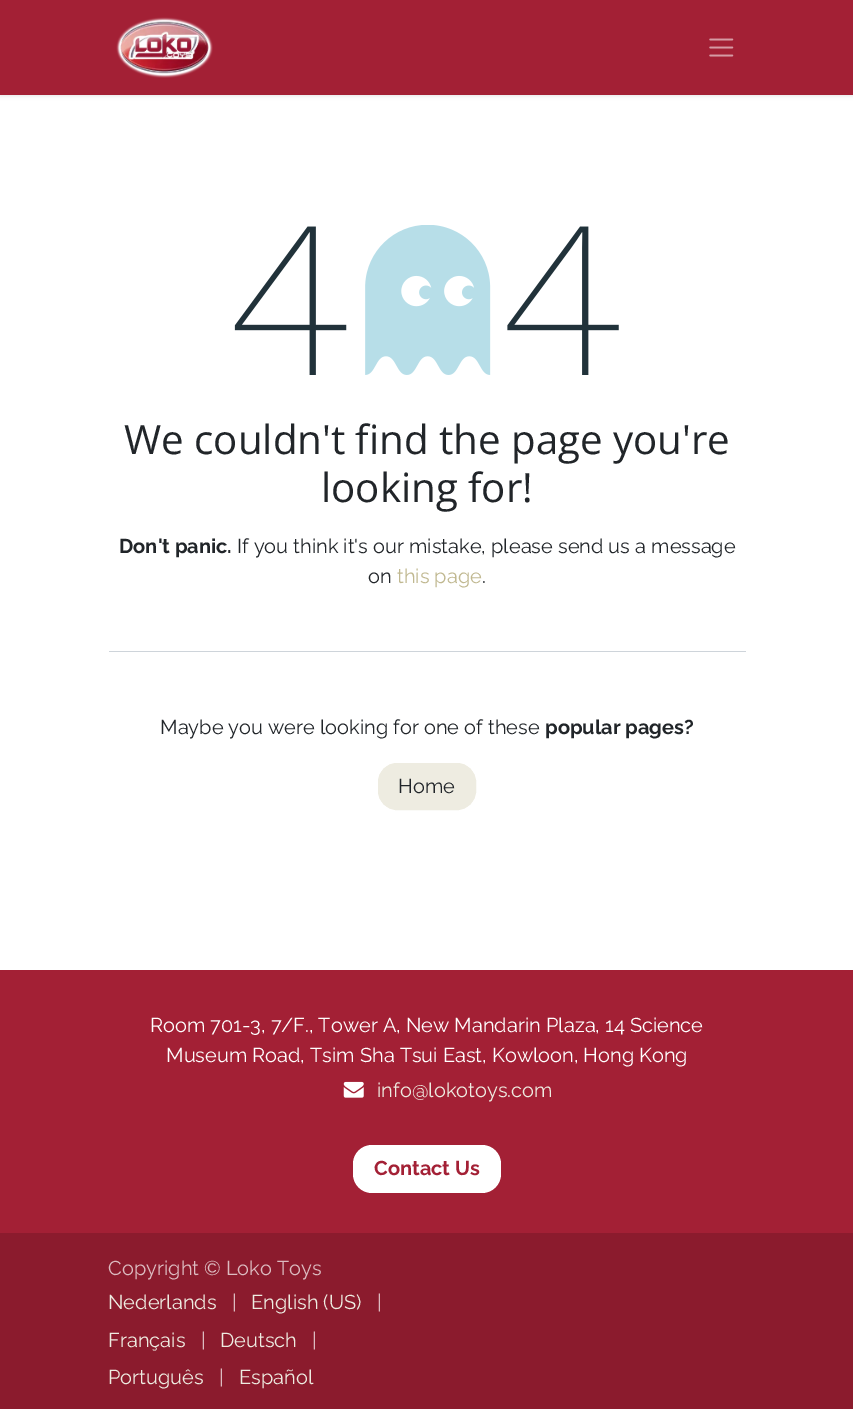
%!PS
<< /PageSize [853 1409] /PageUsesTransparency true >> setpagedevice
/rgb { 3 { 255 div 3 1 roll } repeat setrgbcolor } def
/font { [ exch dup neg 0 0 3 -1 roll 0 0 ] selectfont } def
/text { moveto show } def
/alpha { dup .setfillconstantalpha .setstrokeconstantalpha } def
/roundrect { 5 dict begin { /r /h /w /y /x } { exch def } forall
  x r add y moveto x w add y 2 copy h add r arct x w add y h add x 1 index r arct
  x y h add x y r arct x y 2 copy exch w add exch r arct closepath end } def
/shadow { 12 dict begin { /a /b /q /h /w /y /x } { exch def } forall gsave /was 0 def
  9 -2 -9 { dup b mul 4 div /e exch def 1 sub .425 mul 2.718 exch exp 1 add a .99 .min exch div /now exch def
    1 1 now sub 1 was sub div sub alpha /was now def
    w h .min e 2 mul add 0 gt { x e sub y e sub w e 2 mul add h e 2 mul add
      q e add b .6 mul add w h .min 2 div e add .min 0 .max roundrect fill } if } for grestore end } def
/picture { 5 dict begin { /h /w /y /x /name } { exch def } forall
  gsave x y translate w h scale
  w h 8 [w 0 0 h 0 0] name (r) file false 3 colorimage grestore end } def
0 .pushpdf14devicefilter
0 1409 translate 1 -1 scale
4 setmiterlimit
255 255 255 rgb
0 0 853 1409 rectfill
0 0 0 rgb
0 1 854 95 0 2 0.1 shadow
163 32 53 rgb
0 0 853 95 rectfill
(img_01.rgb) 116 17 97 61 picture
(img_02.rgb) 709 38 25 19 picture
(img_03.rgb) 234 225 385 150 picture
206 212 218 rgb
109 651 637 1 rectfill
238 236 225 rgb
378.5 763.5 97 46 18.5 roundrect gsave fill grestore
stroke
163 32 53 rgb
0 970 853 263 rectfill
(img_04.rgb) 343 1081 21 17 picture
255 255 255 rgb
353 1145 148 48 19 roundrect fill
139 27 45 rgb
0 1233 853 176 rectfill
/OpenSans-Regular 40.25 font
33 37 41 rgb
(We couldn't find the page you're) 124 454 text
(looking for!) 321 502 text
/Raleway-Bold 20 font
(Don't panic.) 119 553 text
/Raleway-Regular 20 font
(If you think it's our mistake, please send us a message) 237 553 text
(on) 368 583 text
192 184 144 rgb
(this page) 397 583 text
33 37 41 rgb
(.) 482 583 text
(Maybe you were looking for one of these) 160 734 text
/Raleway-Bold 20 font
(popular pages?) 545 734 text
/Raleway-Regular 20 font
(Home) 398 793 text
255 255 255 rgb
(Room 701-3, 7/F., Tower A, New Mandarin Plaza, 14 Science) 150 1032 text
(Museum Road, Tsim Sha Tsui East, Kowloon, Hong Kong) 166 1062 text
238 236 225 rgb
(info@lokotoys.com) 377 1097 text
/Raleway-Bold 20 font
163 32 53 rgb
(Contact Us) 374 1175 text
/Raleway-Regular 20 font
220 187 192 rgb
(Copyright © Loko Toys) 108 1275 text
238 236 225 rgb
(Nederlands) 108 1309 text
220 187 192 rgb
(|) 232 1309 text
238 236 225 rgb
(English \(US\)) 251 1309 text
220 187 192 rgb
(|) 377 1309 text
238 236 225 rgb
(Français) 108 1347 text
220 187 192 rgb
(|) 201 1347 text
238 236 225 rgb
(Deutsch) 220 1347 text
220 187 192 rgb
(|) 312 1347 text
238 236 225 rgb
(Português) 108 1384 text
220 187 192 rgb
(|) 219 1384 text
238 236 225 rgb
(Español) 239 1384 text
.poppdf14devicefilter showpage
